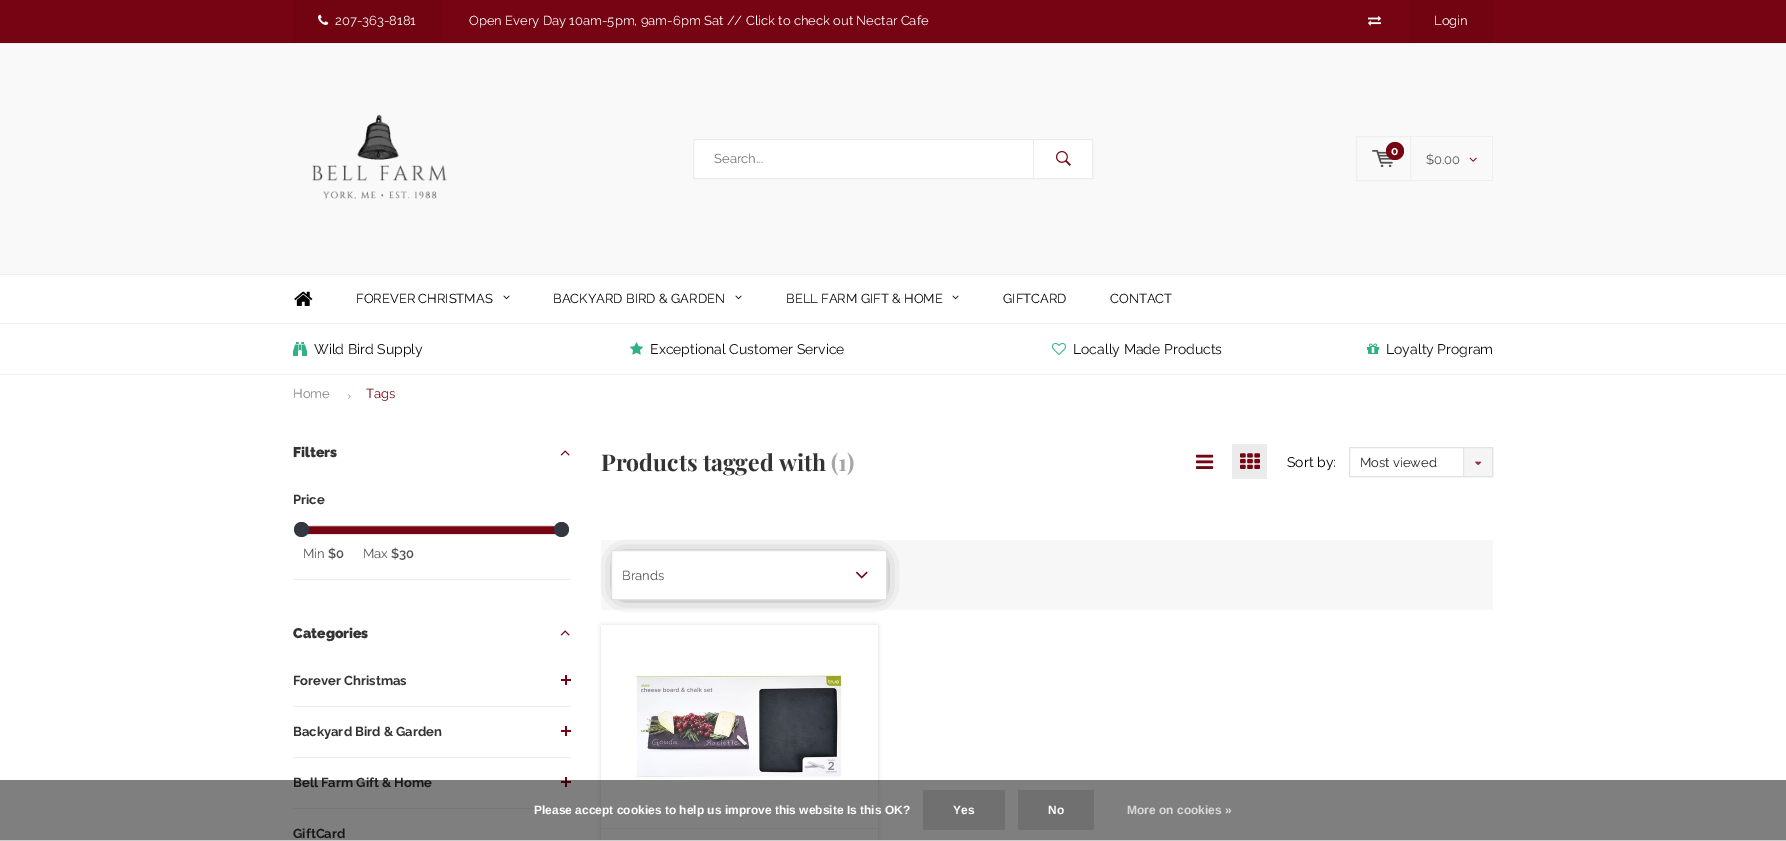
%!PS
<< /PageSize [1786 841] /PageUsesTransparency true >> setpagedevice
/rgb { 3 { 255 div 3 1 roll } repeat setrgbcolor } def
/font { [ exch dup neg 0 0 3 -1 roll 0 0 ] selectfont } def
/text { moveto show } def
/alpha { dup .setfillconstantalpha .setstrokeconstantalpha } def
/circle { newpath 0 360 arc closepath } def
/roundrect { 5 dict begin { /r /h /w /y /x } { exch def } forall
  x r add y moveto x w add y 2 copy h add r arct x w add y h add x 1 index r arct
  x y h add x y r arct x y 2 copy exch w add exch r arct closepath end } def
/shadow { 12 dict begin { /a /b /q /h /w /y /x } { exch def } forall gsave /was 0 def
  9 -2 -9 { dup b mul 4 div /e exch def 1 sub .425 mul 2.718 exch exp 1 add a .99 .min exch div /now exch def
    1 1 now sub 1 was sub div sub alpha /was now def
    w h .min e 2 mul add 0 gt { x e sub y e sub w e 2 mul add h e 2 mul add
      q e add b .6 mul add w h .min 2 div e add .min 0 .max roundrect fill } if } for grestore end } def
/picture { 5 dict begin { /h /w /y /x /name } { exch def } forall
  gsave x y translate w h scale
  w h 8 [w 0 0 h 0 0] name (r) file false 3 colorimage grestore end } def
0 .pushpdf14devicefilter
0 841 translate 1 -1 scale
4 setmiterlimit
255 255 255 rgb
0 0 1786 841 rectfill
118 4 18 rgb
0 0 1786 43 rectfill
114 4 17 rgb
293 0 148 43 rectfill
(img_01.rgb) 318 14 11 11 picture
(img_02.rgb) 1368 16 13 10 picture
1409 0 84 43 rectfill
249 249 249 rgb
0 44 1786 230 rectfill
239 239 239 rgb
0 43 1786 1 rectfill
0 274 1786 1 rectfill
(img_03.rgb) 312 114 135 85 picture
255 255 255 rgb
693.5 139.5 moveto 399 0 rlineto 0 39 rlineto -399 0 rlineto closepath gsave fill grestore
235 235 235 rgb
stroke
1033 139 1 40 rectfill
(img_04.rgb) 1056 151 15 15 picture
239 239 239 rgb
1356.5 136.5 54 44 rectstroke
(img_05.rgb) 1372 150 22 17 picture
118 4 18 rgb
1395 151 9 circle fill
239 239 239 rgb
1411 136 82 1 rectfill
1492 136 1 45 rectfill
1411 180 82 1 rectfill
(img_06.rgb) 1469 157 8 5 picture
0 323 1786 1 rectfill
(img_07.rgb) 294 291 19 15 picture
(img_08.rgb) 503 295 7 5 picture
(img_08.rgb) 735 295 7 5 picture
(img_08.rgb) 952 295 7 5 picture
0 374 1786 1 rectfill
(img_09.rgb) 293 342 14 14 picture
(img_10.rgb) 630 342 13 13 picture
(img_11.rgb) 1052 343 14 12 picture
(img_12.rgb) 1367 343 12 11 picture
(img_13.rgb) 348 394 3 5 picture
(img_14.rgb) 560 450 10 6 picture
236 236 236 rgb
293 579 278 1 rectfill
118 4 18 rgb
307 526 249 8 rectfill
229 229 229 rgb
303.5 525.5 259 9 rectstroke
51 55 66 rgb
301.5 529.5 7.5 circle fill
561.5 529.5 7.5 circle fill
(img_14.rgb) 560 630 10 6 picture
236 236 236 rgb
293 706 278 1 rectfill
118 4 18 rgb
561 679 10 2 rectfill
565 675 2 10 rectfill
236 236 236 rgb
293 757 278 1 rectfill
118 4 18 rgb
561 730 10 2 rectfill
565 726 2 10 rectfill
236 236 236 rgb
293 808 278 1 rectfill
118 4 18 rgb
561 781 10 2 rectfill
565 777 2 10 rectfill
(img_15.rgb) 1196 454 18 15 picture
235 235 235 rgb
1232 444 35 35 rectfill
(img_16.rgb) 1240 453 20 16 picture
225 225 225 rgb
1349.5 447.5 143 29 rectstroke
0.8 alpha
243 243 243 rgb
1463 447 30 30 rectfill
225 225 225 rgb
1463.5 447.5 29 29 rectstroke
1 alpha
(img_17.rgb) 1475 461 7 5 picture
247 247 247 rgb
601 540 892 70 rectfill
0 0 0 rgb
622 561 256 30 0 9.5 1 shadow
255 255 255 rgb
611.5 550.5 moveto 275 0 rlineto 0 49 rlineto -275 0 rlineto closepath gsave fill grestore
225 225 225 rgb
stroke
(img_18.rgb) 855 571 13 8 picture
gsave
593 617 moveto 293 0 rlineto 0 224 rlineto -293 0 rlineto closepath 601 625 moveto 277 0 rlineto 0 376 rlineto -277 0 rlineto closepath eoclip newpath
0 0 0 rgb
602 626 275 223 0 2.5 0.2 shadow
grestore
243 243 243 rgb
601 828 277 1 rectfill
(img_19.rgb) 635 671 211 108 picture
204 204 204 rgb
0 840 1786 1 rectfill
/Raleway-Regular 13 font
255 255 255 rgb
(207-363-8181) 335 25 text
(Open Every Day 10am-5pm, 9am-6pm Sat // Click to check out Nectar Cafe) 469 25 text
(Login) 1434 25 text
117 117 117 rgb
(Search...) 714 163 text
/Raleway-Bold 12 font
255 255 255 rgb
(0) 1391 155 text
/Raleway-Regular 13 font
82 82 82 rgb
($0.00) 1426 164 text
0 0 0 rgb
(FOREVER CHRISTMAS) 356 303 text
(BACKYARD BIRD & GARDEN) 553 303 text
(BELL FARM GIFT & HOME) 786 303 text
(GIFTCARD) 1003 303 text
(CONTACT) 1110 303 text
/Raleway-Regular 14 font
13 13 13 rgb
(Wild Bird Supply) 314 354 text
(Exceptional Customer Service) 650 354 text
(Locally Made Products) 1073 354 text
(Loyalty Program) 1386 354 text
/Raleway-Regular 13 font
133 133 133 rgb
(Home) 293 398 text
118 4 18 rgb
(Tags) 366 398 text
/Raleway-Black 14 font
51 51 51 rgb
(Filters) 293 457 text
/Raleway-Bold 13 font
(Price) 293 504 text
/Raleway-Regular 13 font
82 82 82 rgb
(Min) 303 558 text
/Raleway-SemiBold 13 font
($0) 328 558 text
/Raleway-Regular 13 font
(Max) 363 558 text
/Raleway-SemiBold 13 font
($30) 391 558 text
/Raleway-Black 14 font
51 51 51 rgb
(Categories) 293 638 text
/Raleway-Bold 13 font
(Forever Christmas) 293 685 text
(Backyard Bird & Garden) 293 736 text
(Bell Farm Gift & Home) 293 787 text
(GiftCard) 293 838 text
/PlayfairDisplay-Bold 23 font
(Products tagged with) 601 471 text
166 166 166 rgb
(\(1\)) 831 471 text
/Raleway-Regular 14 font
0 0 0 rgb
(Sort by:) 1287 467 text
/Raleway-Regular 13 font
33 33 33 rgb
(Most viewed) 1360 467 text
82 82 82 rgb
(Brands) 622 580 text
0.5 alpha
0 0 0 rgb
0 780 1786 60 rectfill
/LiberationSans-Bold 12 font
1 alpha
255 255 255 rgb
(Please accept cookies to help us improve this website Is this OK?) 534 814 text
112 112 112 rgb
923 790 82 40 rectfill
255 255 255 rgb
(Yes) 953 814 text
112 112 112 rgb
1018 790 76 40 rectfill
255 255 255 rgb
(No) 1048 814 text
217 217 217 rgb
(More on cookies ») 1127 814 text
.poppdf14devicefilter showpage
